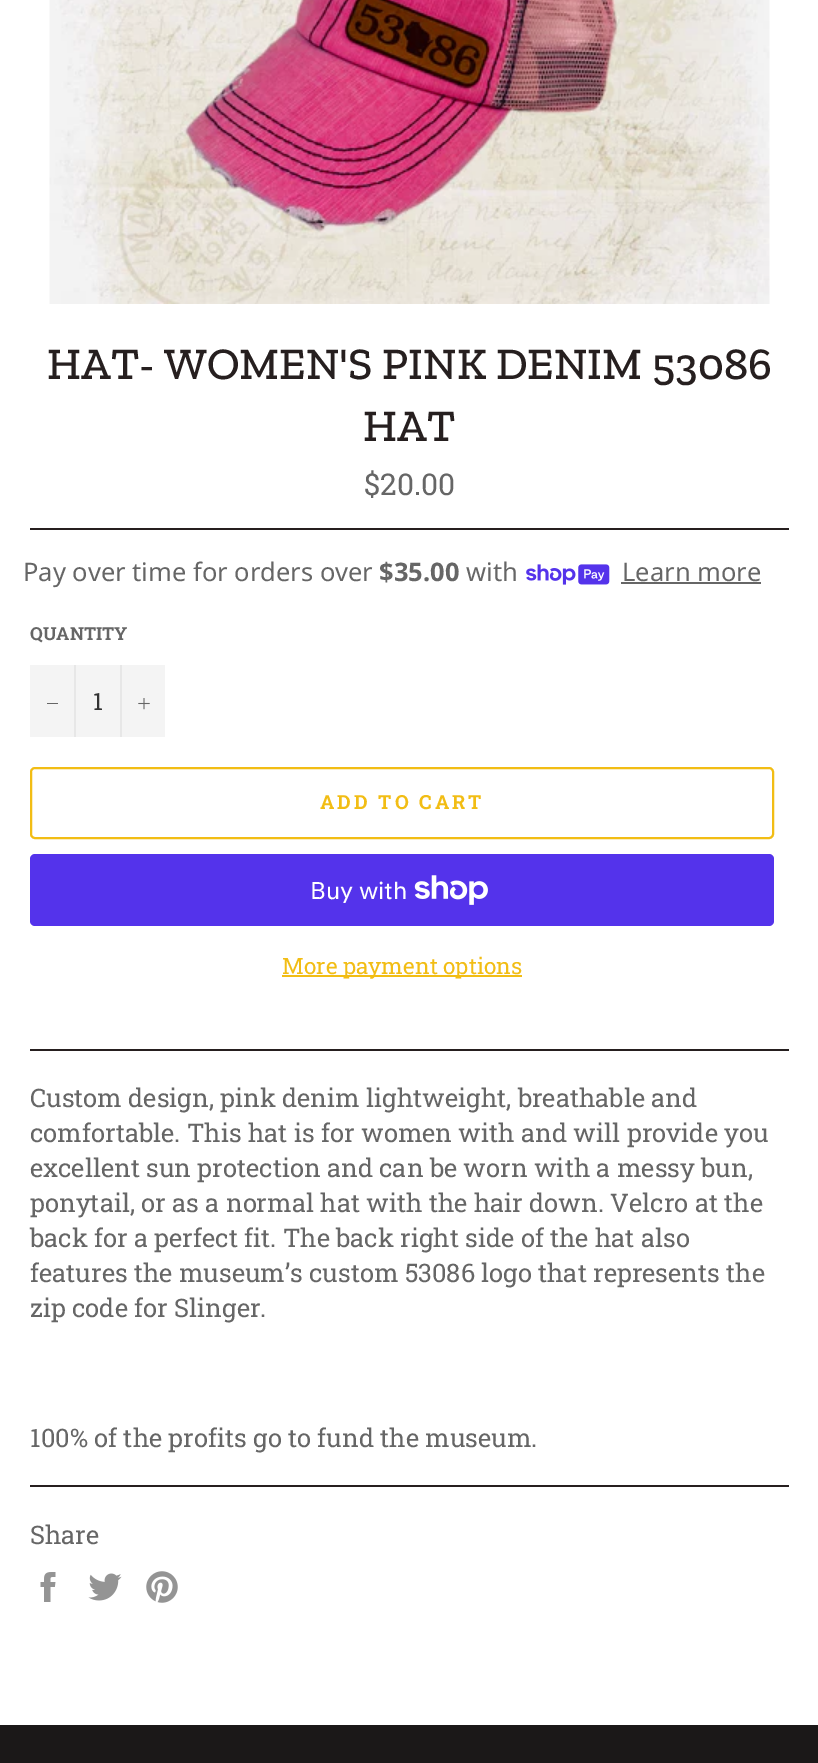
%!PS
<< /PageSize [818 1763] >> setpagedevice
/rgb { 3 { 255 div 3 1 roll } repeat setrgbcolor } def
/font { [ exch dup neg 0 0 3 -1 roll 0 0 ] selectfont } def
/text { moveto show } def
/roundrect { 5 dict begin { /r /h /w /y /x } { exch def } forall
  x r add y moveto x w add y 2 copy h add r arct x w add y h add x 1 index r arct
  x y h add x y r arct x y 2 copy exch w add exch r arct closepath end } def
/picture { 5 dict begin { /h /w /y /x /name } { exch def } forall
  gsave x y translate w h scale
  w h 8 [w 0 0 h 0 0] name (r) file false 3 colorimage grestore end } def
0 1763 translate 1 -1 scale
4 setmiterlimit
255 255 255 rgb
0 0 818 1763 rectfill
(img_01.rgb) 49 0 721 304 picture
38 31 31 rgb
30 528 759 2 rectfill
(img_02.rgb) 526 564 84 21 picture
102 102 102 rgb
621 582 140 2 rectfill
244 244 244 rgb
30 665 135 72 rectfill
231 231 231 rgb
74 665 2 72 rectfill
102 102 102 rgb
47 703 11 1 rectfill
231 231 231 rgb
120 665 2 72 rectfill
(img_03.rgb) 138 698 12 12 picture
242 189 20 rgb
2 setlinewidth
31 768 742 70 4 roundrect stroke
84 51 235 rgb
30 854 744 72 5 roundrect fill
(img_04.rgb) 414 875 74 30 picture
242 189 20 rgb
282 975 240 2 rectfill
38 31 31 rgb
30 1049 759 2 rectfill
30 1485 759 2 rectfill
(img_05.rgb) 40 1572 16 30 picture
(img_06.rgb) 88 1573 34 28 picture
(img_07.rgb) 146 1571 32 32 picture
27 24 24 rgb
0 1725 818 38 rectfill
/ZillaSlab-Medium 45 font
38 31 31 rgb
(HAT- WOMEN'S PINK DENIM 53086) 47 379 text
(HAT) 363 441 text
/RobotoSlab-Regular 30 font
102 102 102 rgb
($20.00) 364 495 text
/NotoSans-Regular 25.5 font
(Pay over time for orders over) 23 581 text
/NotoSans-Bold 25.5 font
($35.00) 379 581 text
/NotoSans-Regular 25.5 font
(with) 466 581 text
(Learn more) 622 581 text
/RobotoSlab-Bold 18 font
(QUANTITY) 30 640 text
/RobotoSlab-Regular 24 font
51 51 51 rgb
(1) 93 710 text
/RobotoSlab-Bold 19.5 font
242 189 20 rgb
320 809 moveto 3 0 (ADD TO CART) ashow
/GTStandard-Regular 24 font
255 255 255 rgb
(Buy with) 310 899 text
/RobotoSlab-Regular 22.5 font
242 189 20 rgb
(More payment options) 282 974 text
/RobotoSlab-Regular 25.5 font
102 102 102 rgb
(Custom design, pink denim lightweight, breathable and) 30 1107 text
(comfortable. This hat is for women with and will provide you) 30 1142 text
(excellent sun protection and can be worn with a messy bun,) 30 1177 text
(ponytail, or as a normal hat with the hair down. Velcro at the) 30 1212 text
(back for a perfect fit. The back right side of the hat also) 30 1247 text
(features the museum’s custom 53086 logo that represents the) 30 1282 text
(zip code for Slinger.) 30 1317 text
(100% of the profits go to fund the museum.) 30 1447 text
(Share) 30 1544 text
showpage
